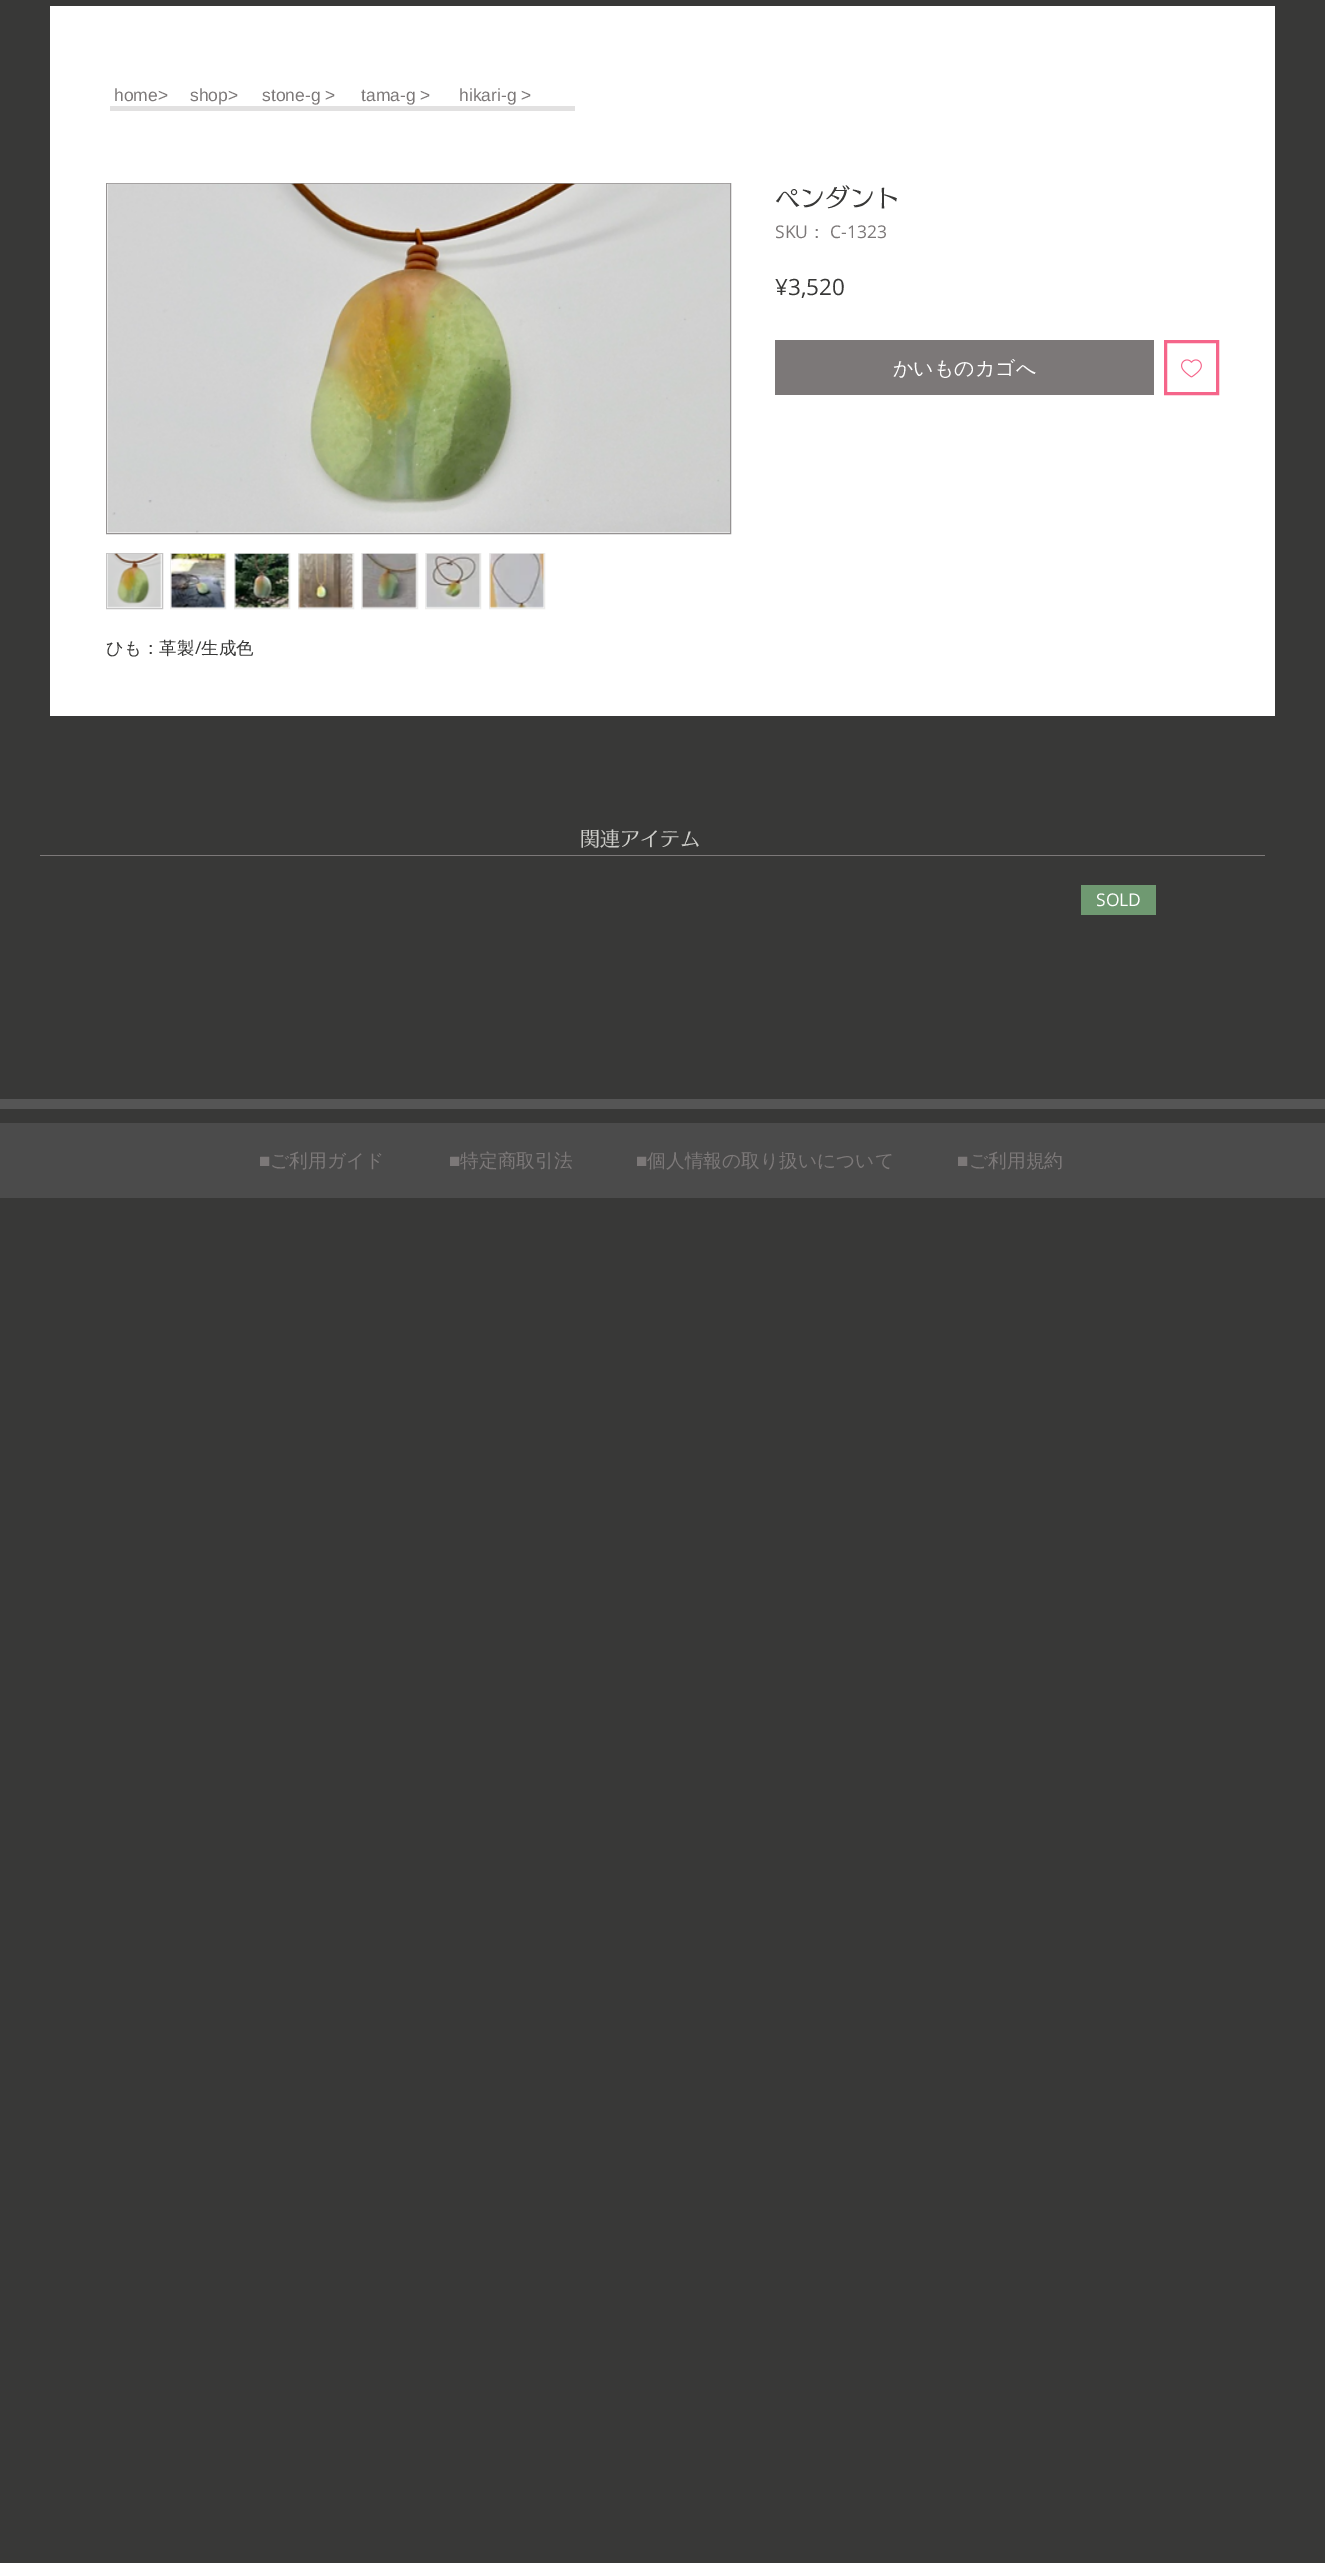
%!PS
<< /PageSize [1325 2563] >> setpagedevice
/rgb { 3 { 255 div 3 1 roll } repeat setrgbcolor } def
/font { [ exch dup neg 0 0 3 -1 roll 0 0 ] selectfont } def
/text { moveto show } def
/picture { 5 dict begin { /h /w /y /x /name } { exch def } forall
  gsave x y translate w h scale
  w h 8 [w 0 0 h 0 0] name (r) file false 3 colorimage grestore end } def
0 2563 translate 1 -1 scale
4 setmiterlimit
56 56 55 rgb
0 0 1325 2563 rectfill
255 255 255 rgb
50 6 1225 710 rectfill
226 225 225 rgb
110 106 465 5 rectfill
124 120 120 rgb
775 340 379 55 rectfill
245 101 138 rgb
3 setlinewidth
1165.5 341.5 52 52 rectstroke
(img_01.rgb) 1181 359 21 19 picture
149 146 146 rgb
1 setlinewidth
106.5 183.5 624 350 rectstroke
(img_02.rgb) 107 183 623 350 picture
197 196 196 rgb
106.5 553.5 56 55 rectstroke
(img_03.rgb) 107 553 55 55 picture
237 237 236 rgb
170.5 553.5 55 55 rectstroke
(img_04.rgb) 170 553 56 55 picture
234.5 553.5 55 55 rectstroke
(img_05.rgb) 234 553 56 55 picture
298.5 553.5 55 55 rectstroke
(img_06.rgb) 298 553 55 55 picture
361.5 553.5 56 55 rectstroke
(img_07.rgb) 362 553 55 55 picture
425.5 553.5 55 55 rectstroke
(img_08.rgb) 426 553 55 55 picture
489.5 553.5 55 55 rectstroke
(img_09.rgb) 489 553 56 55 picture
124 120 120 rgb
40 855 1225 1 rectfill
111 153 113 rgb
1081 885 75 30 rectfill
85 85 85 rgb
0 1099 1325 10 rectfill
75 75 75 rgb
0 1123 1325 75 rectfill
/LiberationSans-Regular 17.5 font
124 120 120 rgb
(home>) 114 101 text
(shop>) 190 101 text
(stone-g >) 262 101 text
(tama-g >) 361 101 text
(hikari-g >) 459 101 text
/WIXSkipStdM-Medium 25 font
56 56 55 rgb
(ペンダント) 775 207 text
/OpenSans-Regular 17.5 font
124 120 120 rgb
(SKU) 775 238 text
/WenQuanYiZenHei-Medium 17.5 font
(：) 808 238 text
/OpenSans-Regular 17.5 font
(C-1323) 830 238 text
/OpenSans-Regular 22.5 font
56 56 55 rgb
(¥3,520) 775 295 text
/WenQuanYiZenHei-Medium 20 font
255 255 255 rgb
(かいものカゴへ) 893 375 text
/WenQuanYiZenHei-Medium 17.5 font
56 56 55 rgb
(ひも：革製) 106 654 text
/OpenSans-Regular 17.5 font
(/) 195 654 text
/WenQuanYiZenHei-Medium 17.5 font
(生成色) 201 654 text
/WIXSkipStdM-Medium 20 font
205 205 201 rgb
(関連アイテム) 580 846 text
/OpenSans-Regular 17.5 font
255 255 255 rgb
(SOLD) 1096 906 text
/LiberationSans-Regular 18.75 font
124 120 120 rgb
(■) 259 1167 text
/WenQuanYiZenHei-Medium 18.75 font
(ご利用ガイド) 270 1167 text
/LiberationSans-Regular 18.75 font
(■) 449 1167 text
/WenQuanYiZenHei-Medium 18.75 font
(特定商取引法) 460 1167 text
/LiberationSans-Regular 18.75 font
(■) 636 1167 text
/WenQuanYiZenHei-Medium 18.75 font
(個人情報の取り扱いについて) 647 1167 text
/LiberationSans-Regular 18.75 font
(■) 957 1167 text
/WenQuanYiZenHei-Medium 18.75 font
(ご利用規約) 969 1167 text
showpage
